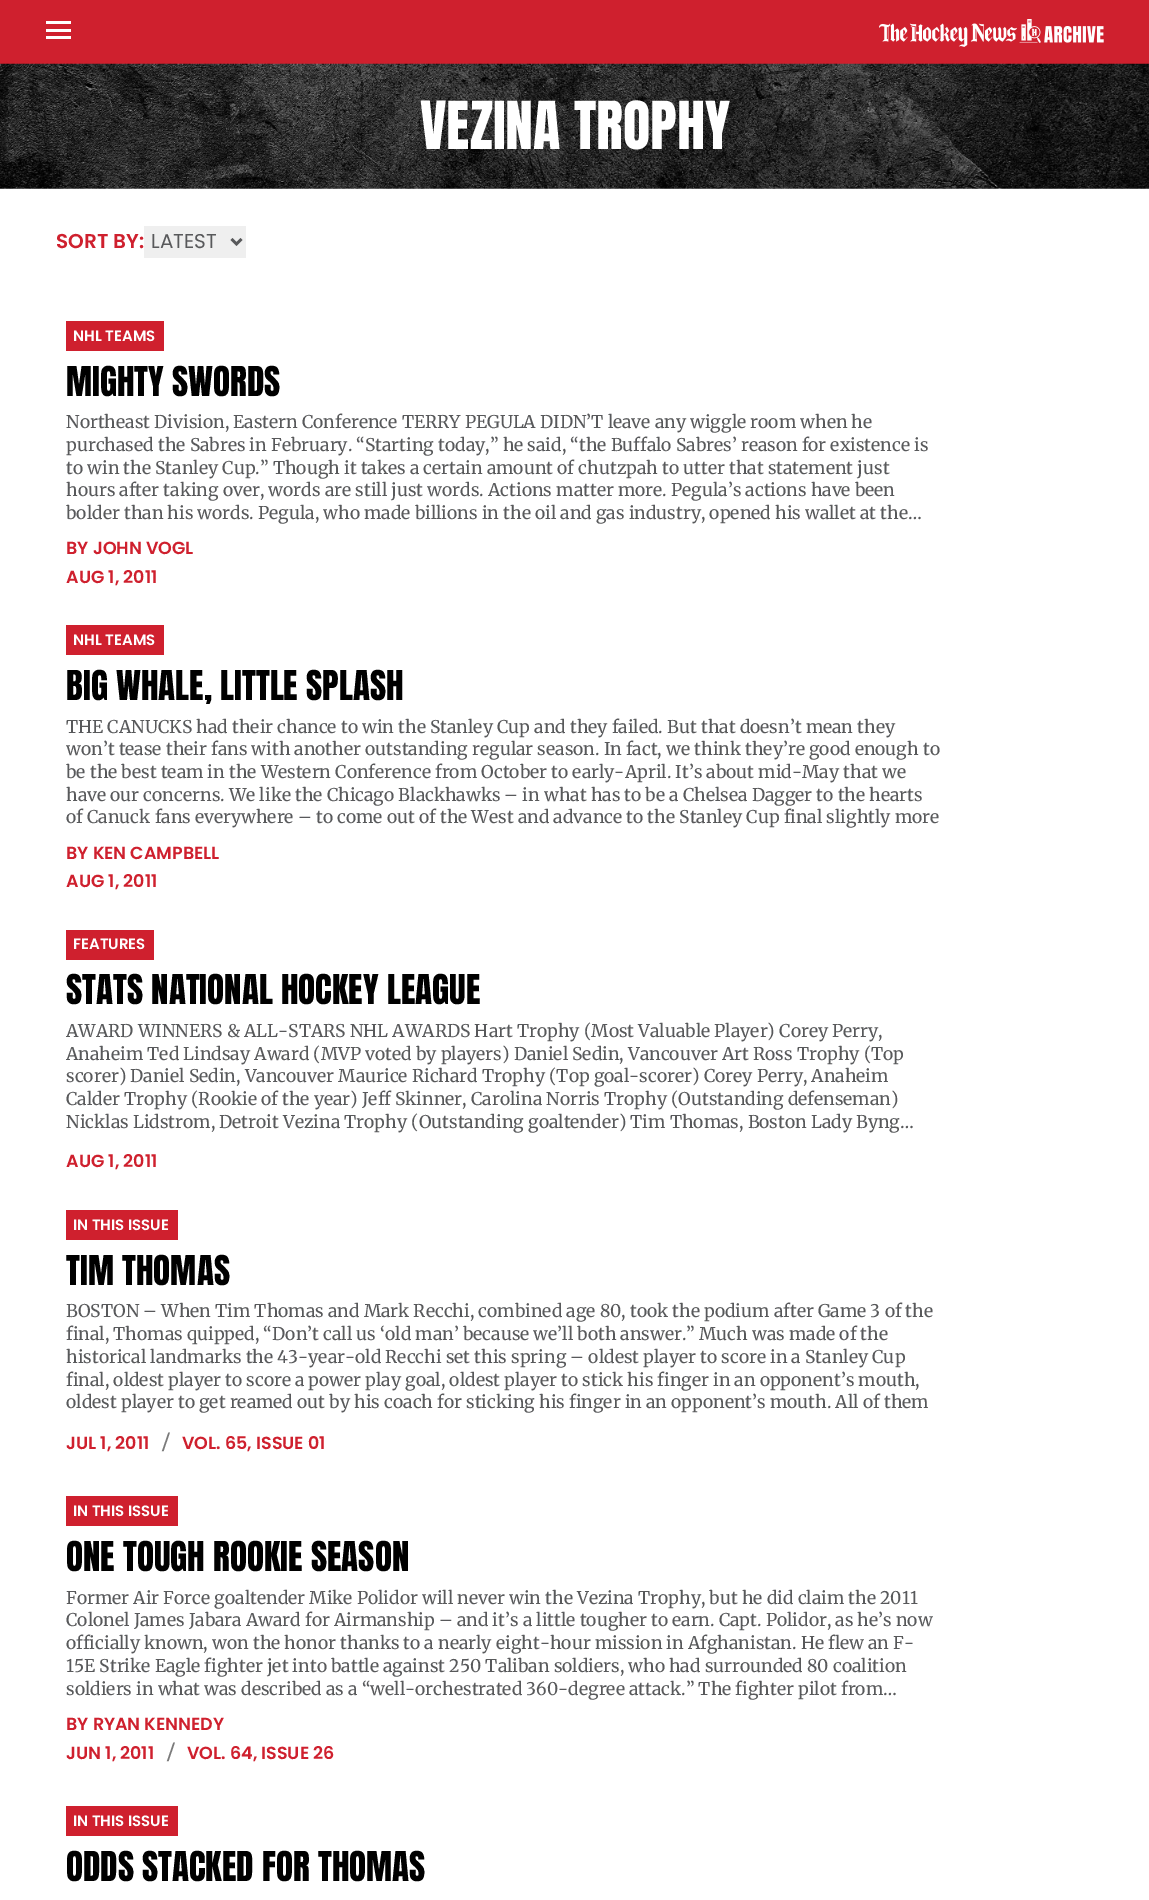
%!PS
<< /PageSize [1149 1900] >> setpagedevice
/rgb { 3 { 255 div 3 1 roll } repeat setrgbcolor } def
/font { [ exch dup neg 0 0 3 -1 roll 0 0 ] selectfont } def
/text { moveto show } def
/picture { 5 dict begin { /h /w /y /x /name } { exch def } forall
  gsave x y translate w h scale
  w h 8 [w 0 0 h 0 0] name (r) file false 3 colorimage grestore end } def
0 1900 translate 1 -1 scale
4 setmiterlimit
255 255 255 rgb
0 0 1149 1900 rectfill
207 32 46 rgb
0 0 1149 64 rectfill
255 255 255 rgb
46 29 25 3 rectfill
46 21 25 3 rectfill
46 36 25 3 rectfill
(img_01.rgb) 879 19 225 28 picture
(img_02.rgb) 0 63 1149 126 picture
239 239 239 rgb
144 226 102 32 rectfill
88 89 91 rgb
2.5 setlinewidth
231.5 239 moveto 5 5 rlineto 5 -5 rlineto stroke
207 32 46 rgb
66 321 98 30 rectfill
66 625 98 30 rectfill
66 930 88 30 rectfill
66 1210 112 30 rectfill
66 1496 112 30 rectfill
66 1806 112 30 rectfill
/Anton-Regular 56.25 font
255 255 255 rgb
(VEZINA TROPHY) 420 149 text
/Poppins-SemiBold 20 font
207 32 46 rgb
(SORT BY:) 56 248 text
/Poppins-Regular 20 font
88 89 91 rgb
(LATEST) 151 248 text
/Poppins-SemiBold 15 font
255 255 255 rgb
(NHL TEAMS) 73 341 text
/Anton-Regular 35 font
0 0 0 rgb
(MIGHTY SWORDS) 66 396 text
/Merriweather-Regular 17.5 font
88 89 91 rgb
(Northeast Division, Eastern Conference TERRY PEGULA DIDN’T leave any wiggle room when he) 66 428 text
(purchased the Sabres in February. “Starting today,” he said, “the Buffalo Sabres’ reason for existence is) 66 451 text
(to win the Stanley Cup.” Though it takes a certain amount of chutzpah to utter that statement just) 66 474 text
(hours after taking over, words are still just words. Actions matter more. Pegula’s actions have been) 66 496 text
(bolder than his words. Pegula, who made billions in the oil and gas industry, opened his wallet at the…) 66 519 text
/Poppins-SemiBold 17.5 font
207 32 46 rgb
(BY JOHN VOGL) 66 554 text
(AUG 1, 2011) 66 583 text
/Poppins-SemiBold 15 font
255 255 255 rgb
(NHL TEAMS) 73 645 text
/Anton-Regular 35 font
0 0 0 rgb
(BIG WHALE, LITTLE SPLASH) 66 700 text
/Merriweather-Regular 17.5 font
88 89 91 rgb
(THE CANUCKS had their chance to win the Stanley Cup and they failed. But that doesn’t mean they) 66 733 text
(won’t tease their fans with another outstanding regular season. In fact, we think they’re good enough to) 66 755 text
(be the best team in the Western Conference from October to early-April. It’s about mid-May that we) 66 778 text
(have our concerns. We like the Chicago Blackhawks – in what has to be a Chelsea Dagger to the hearts) 66 801 text
(of Canuck fans everywhere – to come out of the West and advance to the Stanley Cup final slightly more) 66 823 text
/Poppins-SemiBold 17.5 font
207 32 46 rgb
(BY KEN CAMPBELL) 66 859 text
(AUG 1, 2011) 66 887 text
/Poppins-SemiBold 15 font
255 255 255 rgb
(FEATURES) 73 949 text
/Anton-Regular 35 font
0 0 0 rgb
(STATS NATIONAL HOCKEY LEAGUE) 66 1004 text
/Merriweather-Regular 17.5 font
88 89 91 rgb
(AWARD WINNERS & ALL-STARS NHL AWARDS Hart Trophy \(Most Valuable Player\) Corey Perry,) 66 1037 text
(Anaheim Ted Lindsay Award \(MVP voted by players\) Daniel Sedin, Vancouver Art Ross Trophy \(Top) 66 1060 text
(scorer\) Daniel Sedin, Vancouver Maurice Richard Trophy \(Top goal-scorer\) Corey Perry, Anaheim) 66 1082 text
(Calder Trophy \(Rookie of the year\) Jeff Skinner, Carolina Norris Trophy \(Outstanding defenseman\)) 66 1105 text
(Nicklas Lidstrom, Detroit Vezina Trophy \(Outstanding goaltender\) Tim Thomas, Boston Lady Byng…) 66 1128 text
/Poppins-SemiBold 17.5 font
207 32 46 rgb
(AUG 1, 2011) 66 1167 text
/Poppins-SemiBold 15 font
255 255 255 rgb
(IN THIS ISSUE) 73 1230 text
/Anton-Regular 35 font
0 0 0 rgb
(TIM THOMAS) 66 1285 text
/Merriweather-Regular 17.5 font
88 89 91 rgb
(BOSTON – When Tim Thomas and Mark Recchi, combined age 80, took the podium after Game 3 of the) 66 1317 text
(final, Thomas quipped, “Don’t call us ‘old man’ because we’ll both answer.” Much was made of the) 66 1340 text
(historical landmarks the 43-year-old Recchi set this spring – oldest player to score in a Stanley Cup) 66 1363 text
(final, oldest player to score a power play goal, oldest player to stick his finger in an opponent’s mouth,) 66 1386 text
(oldest player to get reamed out by his coach for sticking his finger in an opponent’s mouth. All of them) 66 1408 text
/Poppins-SemiBold 17.5 font
207 32 46 rgb
(JUL 1, 2011) 66 1449 text
/LiberationSerif-Bold 28 font
123 123 123 rgb
(/) 162 1451 text
/Poppins-SemiBold 17.5 font
207 32 46 rgb
(VOL. 65, ISSUE 01) 182 1449 text
/Poppins-SemiBold 15 font
255 255 255 rgb
(IN THIS ISSUE) 73 1516 text
/Anton-Regular 35 font
0 0 0 rgb
(ONE TOUGH ROOKIE SEASON) 66 1571 text
/Merriweather-Regular 17.5 font
88 89 91 rgb
(Former Air Force goaltender Mike Polidor will never win the Vezina Trophy, but he did claim the 2011) 66 1604 text
(Colonel James Jabara Award for Airmanship – and it’s a little tougher to earn. Capt. Polidor, as he’s now) 66 1626 text
(officially known, won the honor thanks to a nearly eight-hour mission in Afghanistan. He flew an F-) 66 1649 text
(15E Strike Eagle fighter jet into battle against 250 Taliban soldiers, who had surrounded 80 coalition) 66 1672 text
(soldiers in what was described as a “well-orchestrated 360-degree attack.” The fighter pilot from…) 66 1695 text
/Poppins-SemiBold 17.5 font
207 32 46 rgb
(BY RYAN KENNEDY) 66 1730 text
(JUN 1, 2011) 66 1759 text
/LiberationSerif-Bold 28 font
123 123 123 rgb
(/) 167 1761 text
/Poppins-SemiBold 17.5 font
207 32 46 rgb
(VOL. 64, ISSUE 26) 187 1759 text
/Poppins-SemiBold 15 font
255 255 255 rgb
(IN THIS ISSUE) 73 1826 text
/Anton-Regular 35 font
0 0 0 rgb
(ODDS STACKED FOR THOMAS) 66 1881 text
showpage
